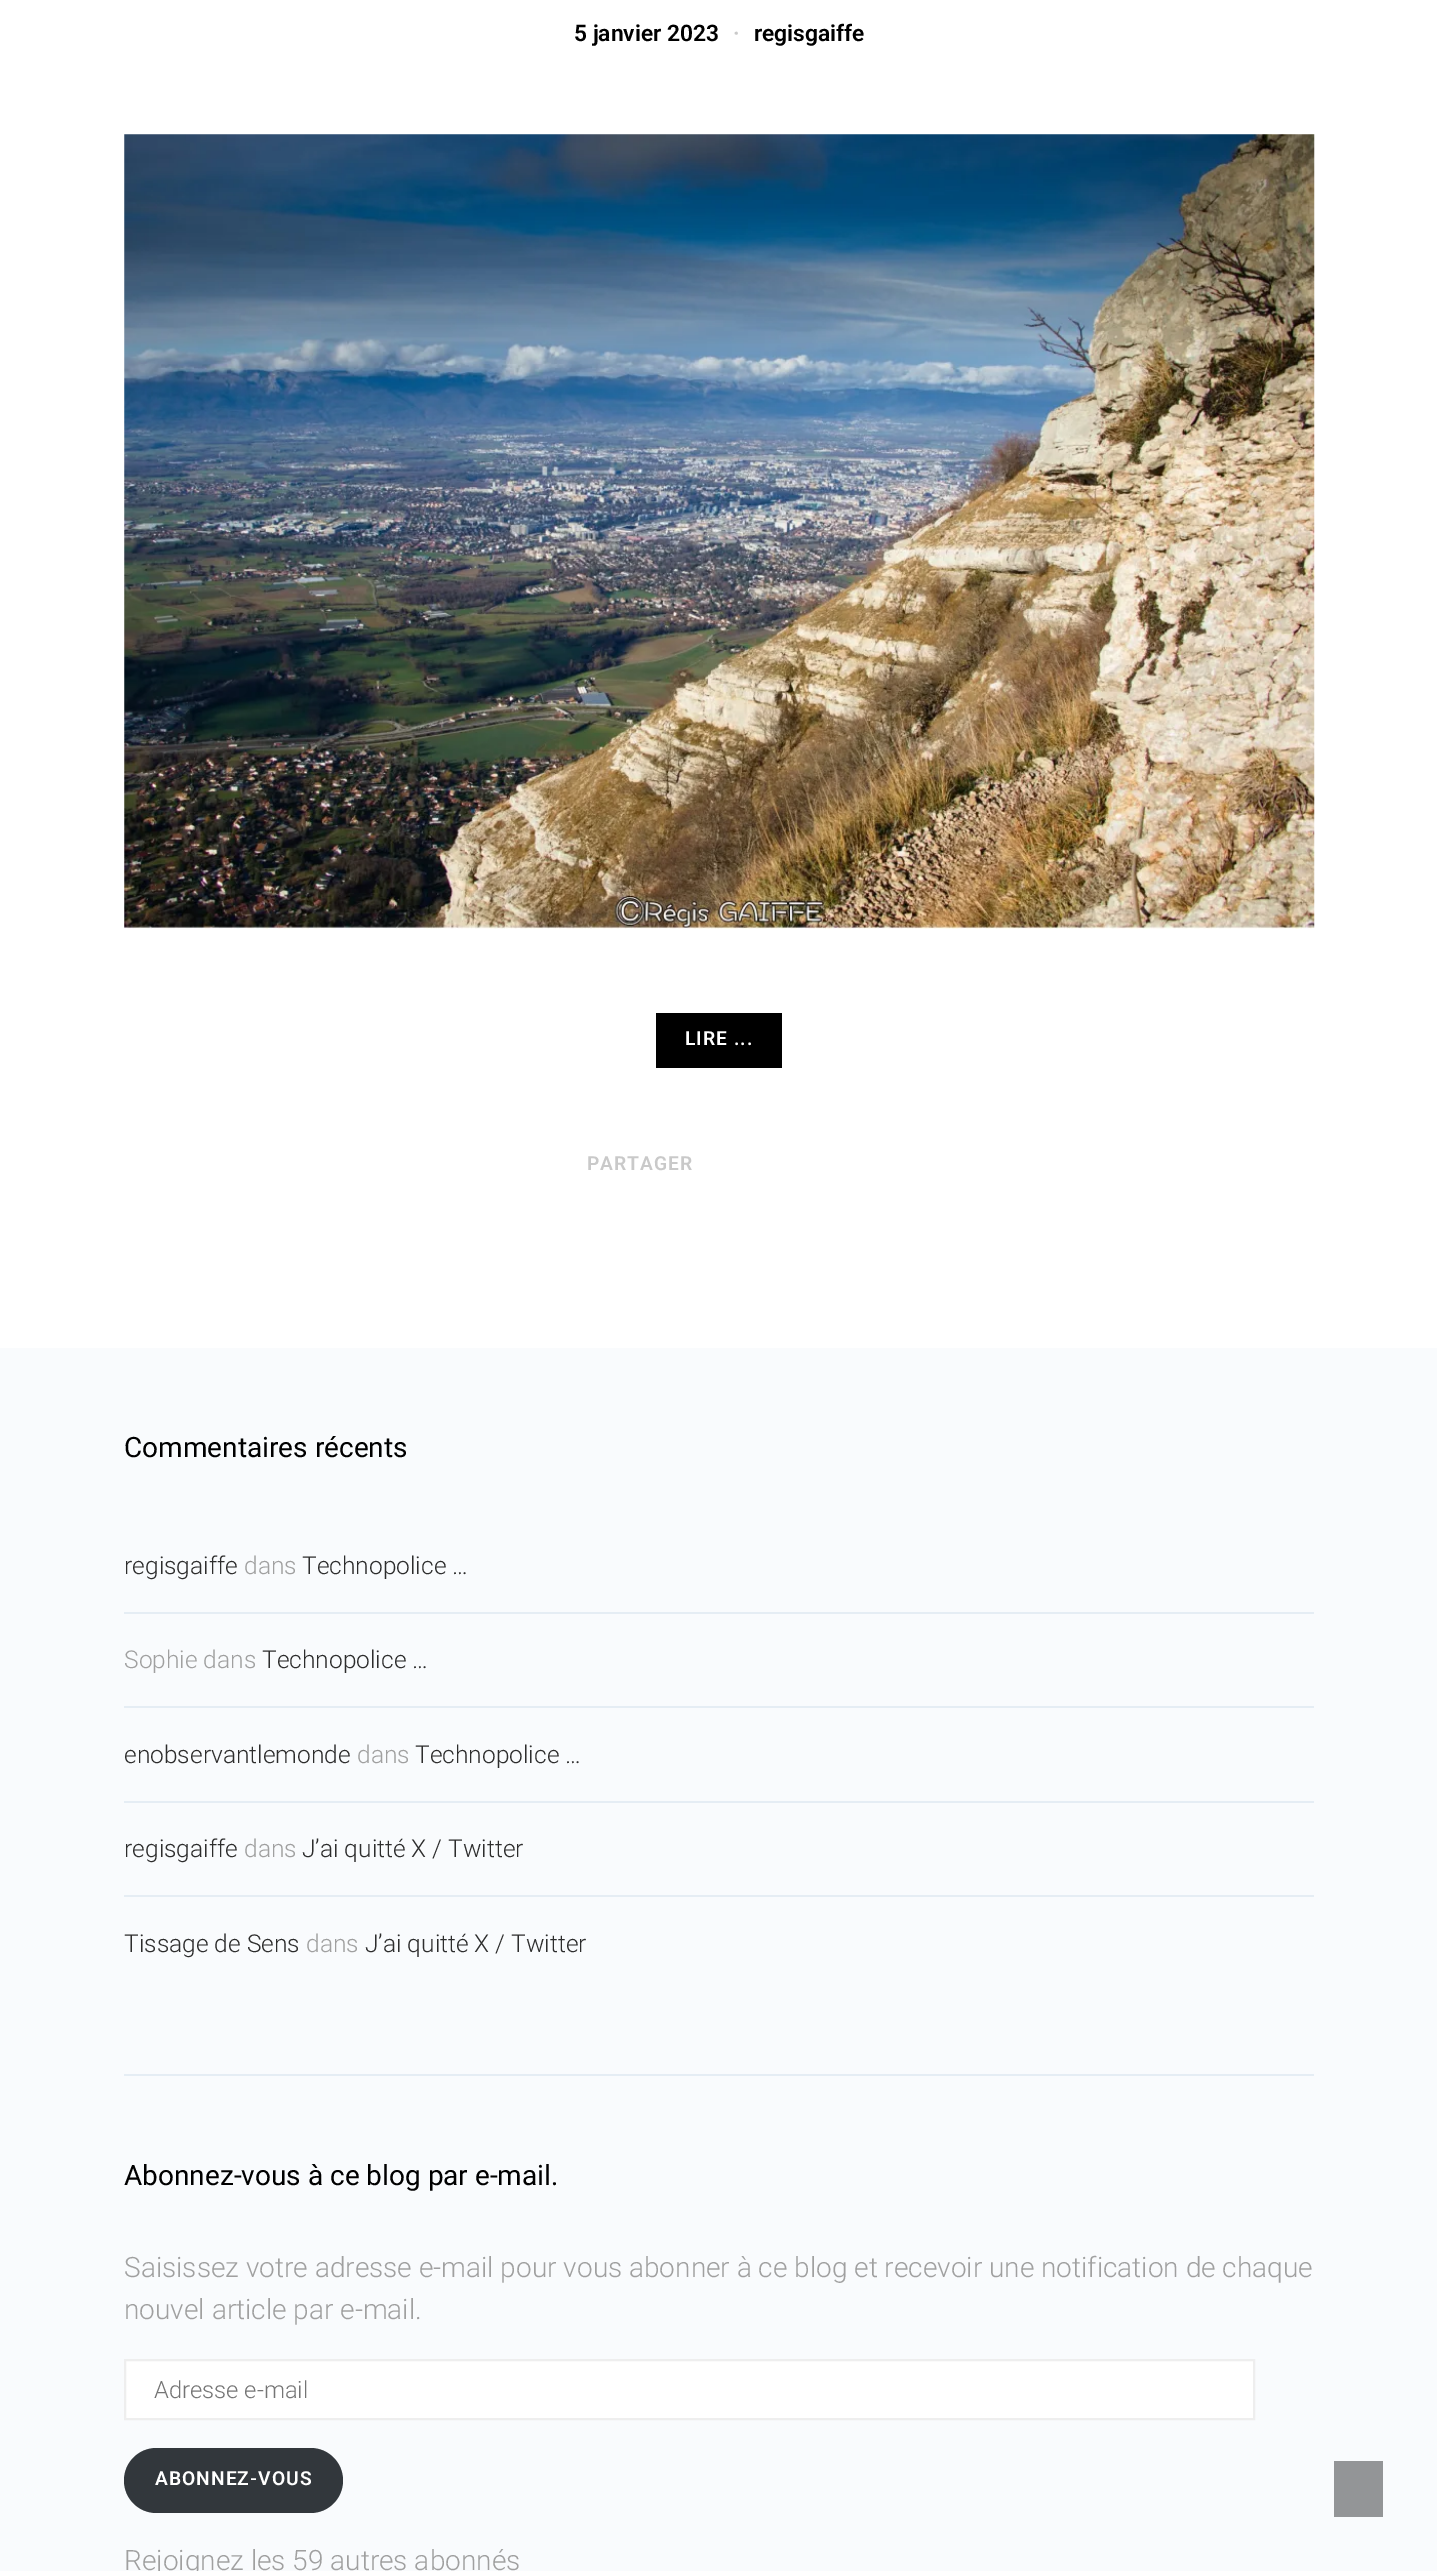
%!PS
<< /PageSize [1437 2571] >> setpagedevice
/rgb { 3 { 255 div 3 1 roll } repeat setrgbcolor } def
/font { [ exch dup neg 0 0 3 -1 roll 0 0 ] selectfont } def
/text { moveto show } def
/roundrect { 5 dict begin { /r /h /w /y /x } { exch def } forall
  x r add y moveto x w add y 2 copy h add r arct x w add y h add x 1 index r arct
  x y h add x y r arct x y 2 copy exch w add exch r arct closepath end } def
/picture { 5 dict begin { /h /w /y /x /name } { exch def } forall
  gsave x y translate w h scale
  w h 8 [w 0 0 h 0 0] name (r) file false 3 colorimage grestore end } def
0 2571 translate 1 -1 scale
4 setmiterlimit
255 255 255 rgb
0 0 1437 2571 rectfill
(img_01.rgb) 124 134 1191 795 picture
0 0 0 rgb
656 1013 126 55 rectfill
249 251 253 rgb
0 1348 1437 1223 rectfill
229 237 244 rgb
124 1612 1190 2 rectfill
124 1706 1190 2 rectfill
124 1801 1190 2 rectfill
124 1895 1190 2 rectfill
124 2074 1190 2 rectfill
255 255 255 rgb
125 2360 moveto 1129 0 rlineto 0 59 rlineto -1129 0 rlineto closepath gsave fill grestore
238 238 238 rgb
2 setlinewidth
stroke
50 55 60 rgb
124 2448 219 65 32.5 roundrect fill
147 149 151 rgb
1334 2461 49 56 rectfill
/Roboto-SemiBold 22.75 font
0 0 0 rgb
(5 janvier 2023) 574 41 text
201 201 201 rgb
(·) 733 41 text
0 0 0 rgb
(regisgaiffe) 754 41 text
/Roboto-SemiBold 19.25 font
255 255 255 rgb
685 1045 moveto 1 0 (LIRE ...) ashow
201 201 201 rgb
587 1170 moveto 1 0 (PARTAGER) ashow
/Roboto-Regular 28 font
0 0 0 rgb
(Commentaires récents) 124 1457 text
/Roboto-Light 24.5 font
45 45 45 rgb
(regisgaiffe) 124 1574 text
160 160 160 rgb
(dans) 244 1574 text
45 45 45 rgb
(Technopolice …) 302 1574 text
160 160 160 rgb
(Sophie dans) 124 1668 text
45 45 45 rgb
(Technopolice …) 262 1668 text
(enobservantlemonde) 124 1763 text
160 160 160 rgb
(dans) 357 1763 text
45 45 45 rgb
(Technopolice …) 415 1763 text
(regisgaiffe) 124 1857 text
160 160 160 rgb
(dans) 244 1857 text
45 45 45 rgb
(J’ai quitté X / Twitter) 302 1857 text
(Tissage de Sens) 124 1952 text
160 160 160 rgb
(dans) 306 1952 text
45 45 45 rgb
(J’ai quitté X / Twitter) 365 1952 text
/Roboto-Regular 28 font
0 0 0 rgb
(Abonnez-vous à ce blog par e-mail.) 124 2185 text
/Roboto-Light 28 font
160 160 160 rgb
(Saisissez votre adresse e-mail pour vous abonner à ce blog et recevoir une notification de chaque) 124 2277 text
(nouvel article par e-mail.) 124 2319 text
/Roboto-Light 23.75 font
117 117 117 rgb
(Adresse e-mail) 154 2398 text
/Roboto-SemiBold 19.25 font
255 255 255 rgb
155 2485 moveto 1 0 (ABONNEZ-VOUS) ashow
/Roboto-Light 28 font
160 160 160 rgb
(Rejoignez les 59 autres abonnés) 124 2570 text
showpage
